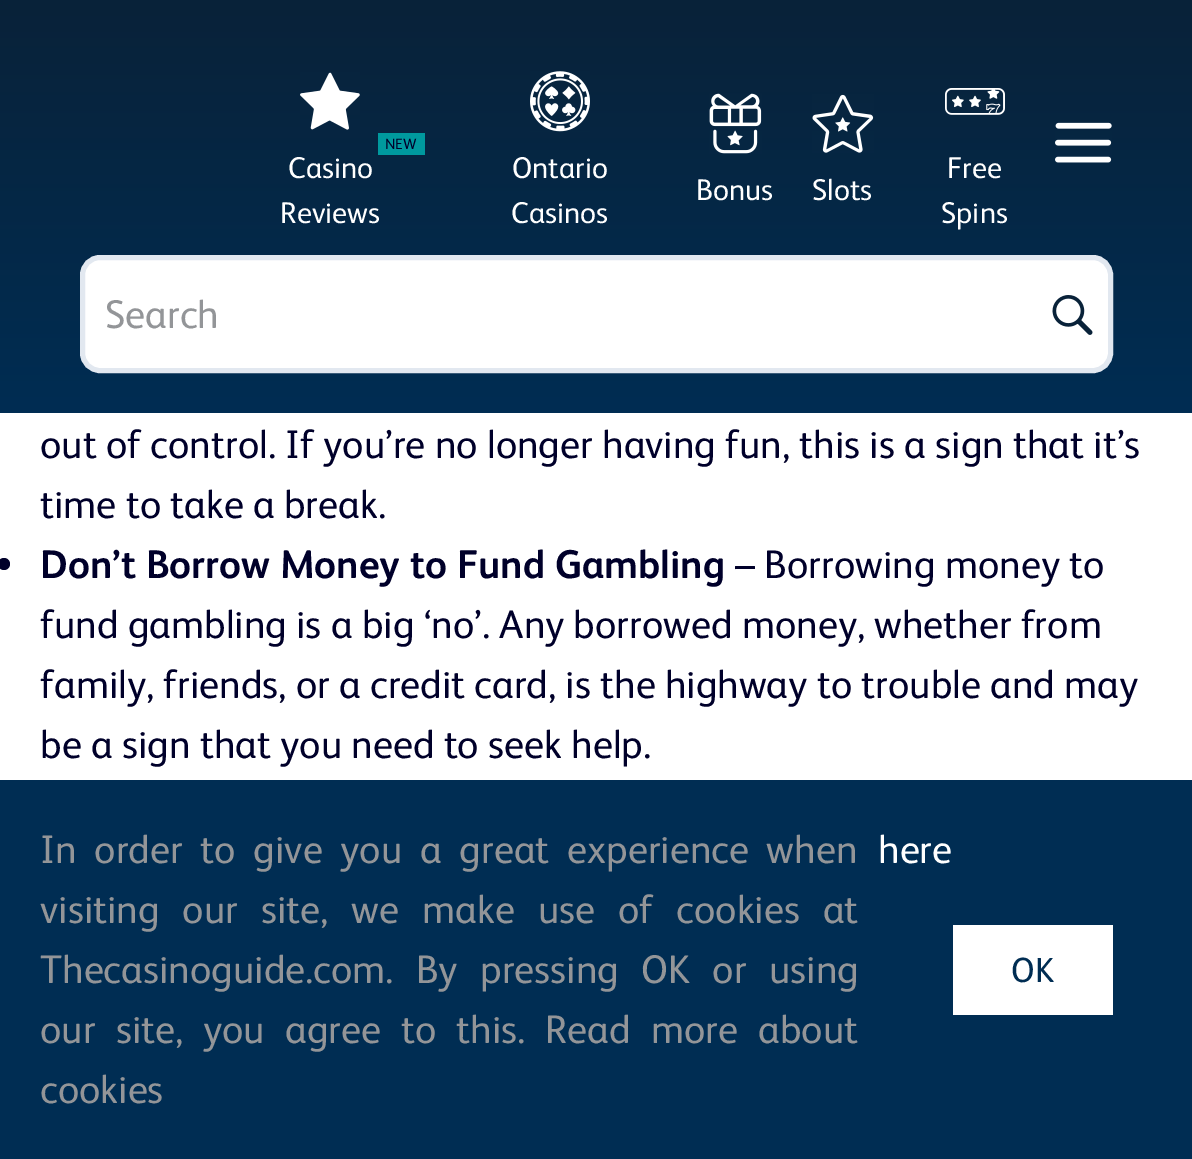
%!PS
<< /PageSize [1192 1159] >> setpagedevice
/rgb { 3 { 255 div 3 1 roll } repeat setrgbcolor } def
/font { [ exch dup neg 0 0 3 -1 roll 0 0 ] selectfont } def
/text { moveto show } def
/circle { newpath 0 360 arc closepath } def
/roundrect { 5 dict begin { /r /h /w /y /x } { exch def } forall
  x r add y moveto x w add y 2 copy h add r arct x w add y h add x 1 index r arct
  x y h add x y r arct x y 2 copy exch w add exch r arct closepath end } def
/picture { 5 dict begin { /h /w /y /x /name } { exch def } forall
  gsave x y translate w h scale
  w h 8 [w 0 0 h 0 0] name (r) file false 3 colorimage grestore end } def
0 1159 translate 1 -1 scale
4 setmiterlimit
255 255 255 rgb
0 0 1192 1159 rectfill
gsave 0 0 moveto 1192 0 rlineto 0 413 rlineto -1192 0 rlineto closepath clip newpath
<< /ShadingType 2 /ColorSpace /DeviceRGB /Coords [596 0 596 413] /Extend [true true] /Function << /FunctionType 2 /Domain [0 1] /C0 [0.035 0.133 0.224] /C1 [0 0.176 0.325] /N 1 >> >> shfill grestore
(img_01.rgb) 300 72 60 58 picture
0 153 158 rgb
378 133 47 22 rectfill
(img_02.rgb) 530 71 60 61 picture
(img_03.rgb) 709 93 53 61 picture
(img_04.rgb) 812 94 62 59 picture
(img_05.rgb) 945 88 60 27 picture
(img_06.rgb) 1055 122 57 41 picture
255 255 255 rgb
82.5 257.5 1028 113 17.5 roundrect gsave fill grestore
226 232 240 rgb
5 setlinewidth
stroke
(img_07.rgb) 1052 295 41 40 picture
0 0 42 rgb
4 564 6 circle fill
0 45 83 rgb
0 780 1192 379 rectfill
255 255 255 rgb
953 925 160 90 rectfill
/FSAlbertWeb-Regular 15 font
0 0 42 rgb
(NEW) 385 149 text
/FSAlbertWeb-Regular 30 font
255 255 255 rgb
(Casino) 288 178 text
(Reviews) 280 223 text
(Ontario) 512 178 text
(Casinos) 511 223 text
(Bonus) 696 200 text
(Slots) 812 200 text
(Free) 947 178 text
(Spins) 941 223 text
/FSAlbertWeb-Regular 40 font
147 149 152 rgb
(Search) 105 328 text
0 0 42 rgb
(out of control. If you’re no longer having fun, this is a sign that it’s) 40 458 text
(time to take a break.) 40 518 text
/FSAlbertWeb-Bold 40 font
(Don’t Borrow Money to Fund Gambling) 40 578 text
/FSAlbertWeb-Regular 40 font
(– Borrowing money to) 735 578 text
(fund gambling is a big ‘no’. Any borrowed money, whether from) 40 638 text
(family, friends, or a credit card, is the highway to trouble and may) 40 698 text
(be a sign that you need to seek help.) 40 758 text
147 149 152 rgb
40 863 moveto 8.5 0 32 (In order to give you a great experience when) widthshow
40 923 moveto 13.75 0 32 (visiting our site, we make use of cookies at) widthshow
40 983 moveto 13 0 32 (Thecasinoguide.com. By pressing OK or using) widthshow
40 1043 moveto 10.75 0 32 (our site, you agree to this. Read more about) widthshow
(cookies) 40 1103 text
255 255 255 rgb
(here) 878 863 text
/FSAlbertWeb-Regular 35 font
0 45 83 rgb
(OK) 1011 982 text
showpage
